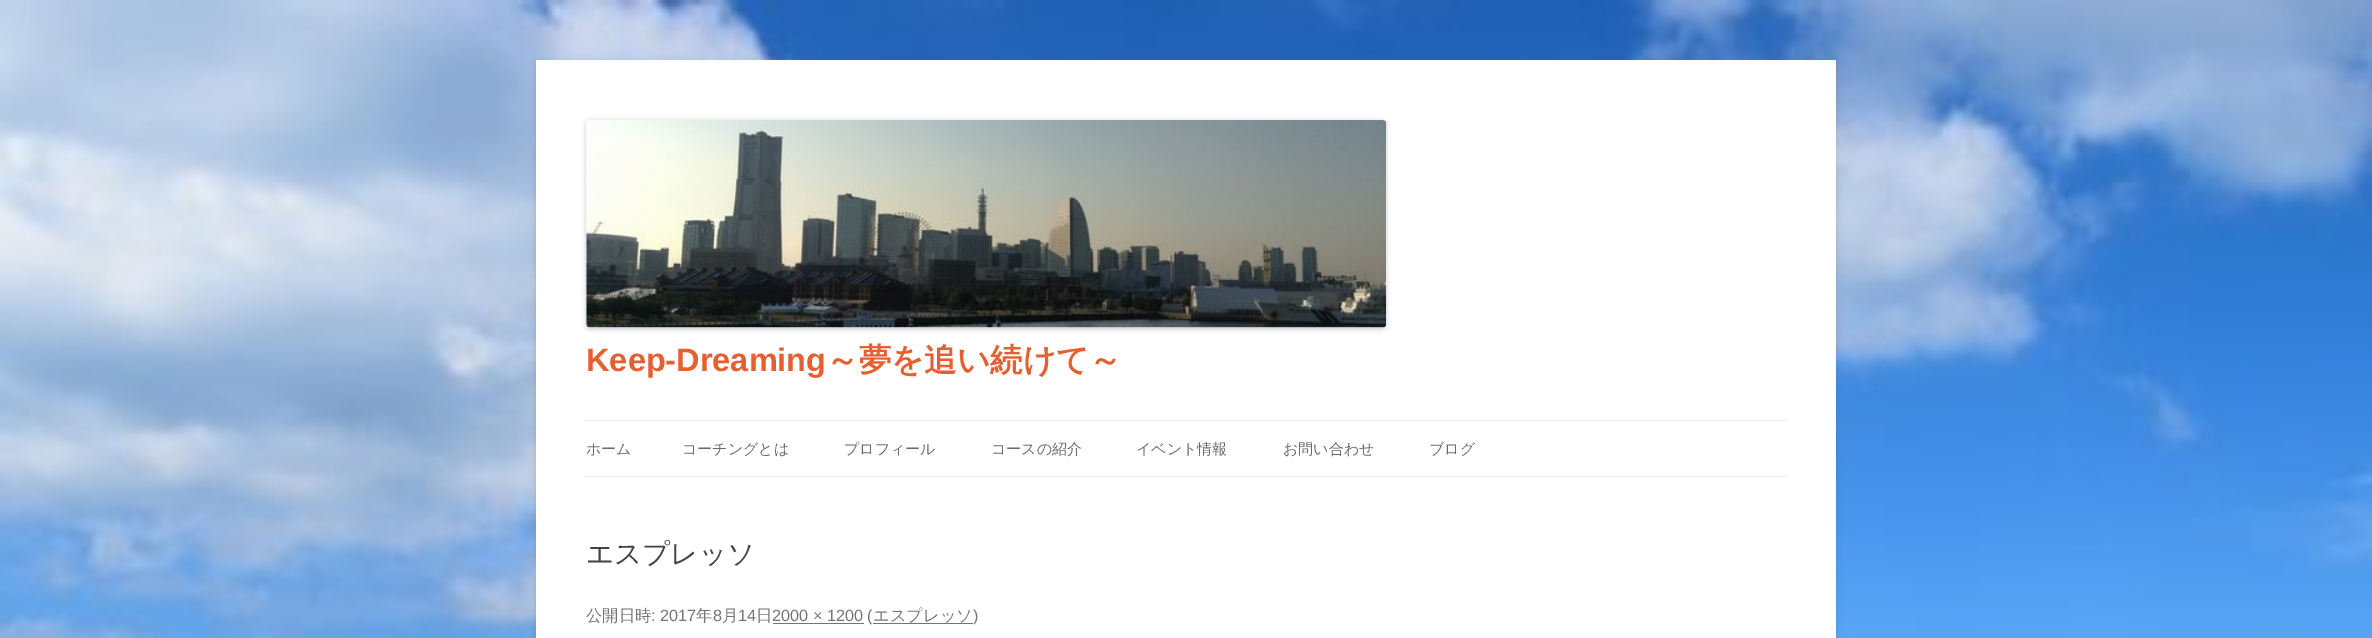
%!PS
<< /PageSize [2372 638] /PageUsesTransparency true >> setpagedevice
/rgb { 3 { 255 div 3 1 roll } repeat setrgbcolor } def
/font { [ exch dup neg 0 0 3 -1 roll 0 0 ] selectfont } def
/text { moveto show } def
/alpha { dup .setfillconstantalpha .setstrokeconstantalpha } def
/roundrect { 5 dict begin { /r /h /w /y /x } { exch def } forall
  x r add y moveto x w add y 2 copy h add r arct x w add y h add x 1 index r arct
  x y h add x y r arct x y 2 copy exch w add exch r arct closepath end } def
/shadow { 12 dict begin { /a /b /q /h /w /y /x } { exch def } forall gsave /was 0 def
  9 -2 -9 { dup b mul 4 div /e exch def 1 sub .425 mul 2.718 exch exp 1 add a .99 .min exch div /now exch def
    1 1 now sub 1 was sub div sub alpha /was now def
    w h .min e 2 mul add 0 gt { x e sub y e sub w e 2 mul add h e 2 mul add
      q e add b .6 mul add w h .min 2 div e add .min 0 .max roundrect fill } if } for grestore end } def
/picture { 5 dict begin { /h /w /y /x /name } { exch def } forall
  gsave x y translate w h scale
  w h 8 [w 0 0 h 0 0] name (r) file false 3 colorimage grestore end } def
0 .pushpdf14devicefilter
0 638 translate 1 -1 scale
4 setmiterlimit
255 255 255 rgb
0 0 2372 638 rectfill
(img_01.rgb) 0 0 2372 638 picture
100 100 100 rgb
536 63 1300 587 0 4 0.3 shadow
255 255 255 rgb
536 60 1300 578 rectfill
0 0 0 rgb
586 121 800 208 4 2.5 0.2 shadow
(img_02.rgb) 586 120 801 208 picture
237 237 237 rgb
586 420 1200 1 rectfill
586 476 1200 1 rectfill
117 117 117 rgb
773 623 91 1 rectfill
873 623 100 1 rectfill
/LiberationSans-Bold 32.5 font
229 96 48 rgb
(Keep-Dreaming) 586 371 text
/WenQuanYiZenHei-Bold 32.5 font
(～夢を追い続けて～) 826 371 text
/WenQuanYiZenHei-Medium 15 font
106 106 106 rgb
(ホーム) 586 454 text
(コーチングとは) 682 454 text
(プロフィール) 844 454 text
(コースの紹介) 991 454 text
(イベント情報) 1136 454 text
(お問い合わせ) 1283 454 text
(ブログ) 1429 454 text
/WenQuanYiZenHei-Medium 27.5 font
68 68 68 rgb
(エスプレッソ) 586 563 text
/WenQuanYiZenHei-Medium 16.25 font
117 117 117 rgb
(公開日時) 586 621 text
/LiberationSans-Regular 16.25 font
(: 2017) 651 621 text
/WenQuanYiZenHei-Medium 16.25 font
(年) 696 621 text
/LiberationSans-Regular 16.25 font
(8) 713 621 text
/WenQuanYiZenHei-Medium 16.25 font
(月) 722 621 text
/LiberationSans-Regular 16.25 font
(14) 738 621 text
/WenQuanYiZenHei-Medium 16.25 font
(日) 756 621 text
/LiberationSans-Regular 16.25 font
(2000 × 1200 \() 772 621 text
/WenQuanYiZenHei-Medium 16.25 font
(エスプレッソ) 873 621 text
/LiberationSans-Regular 16.25 font
(\)) 973 621 text
.poppdf14devicefilter showpage
